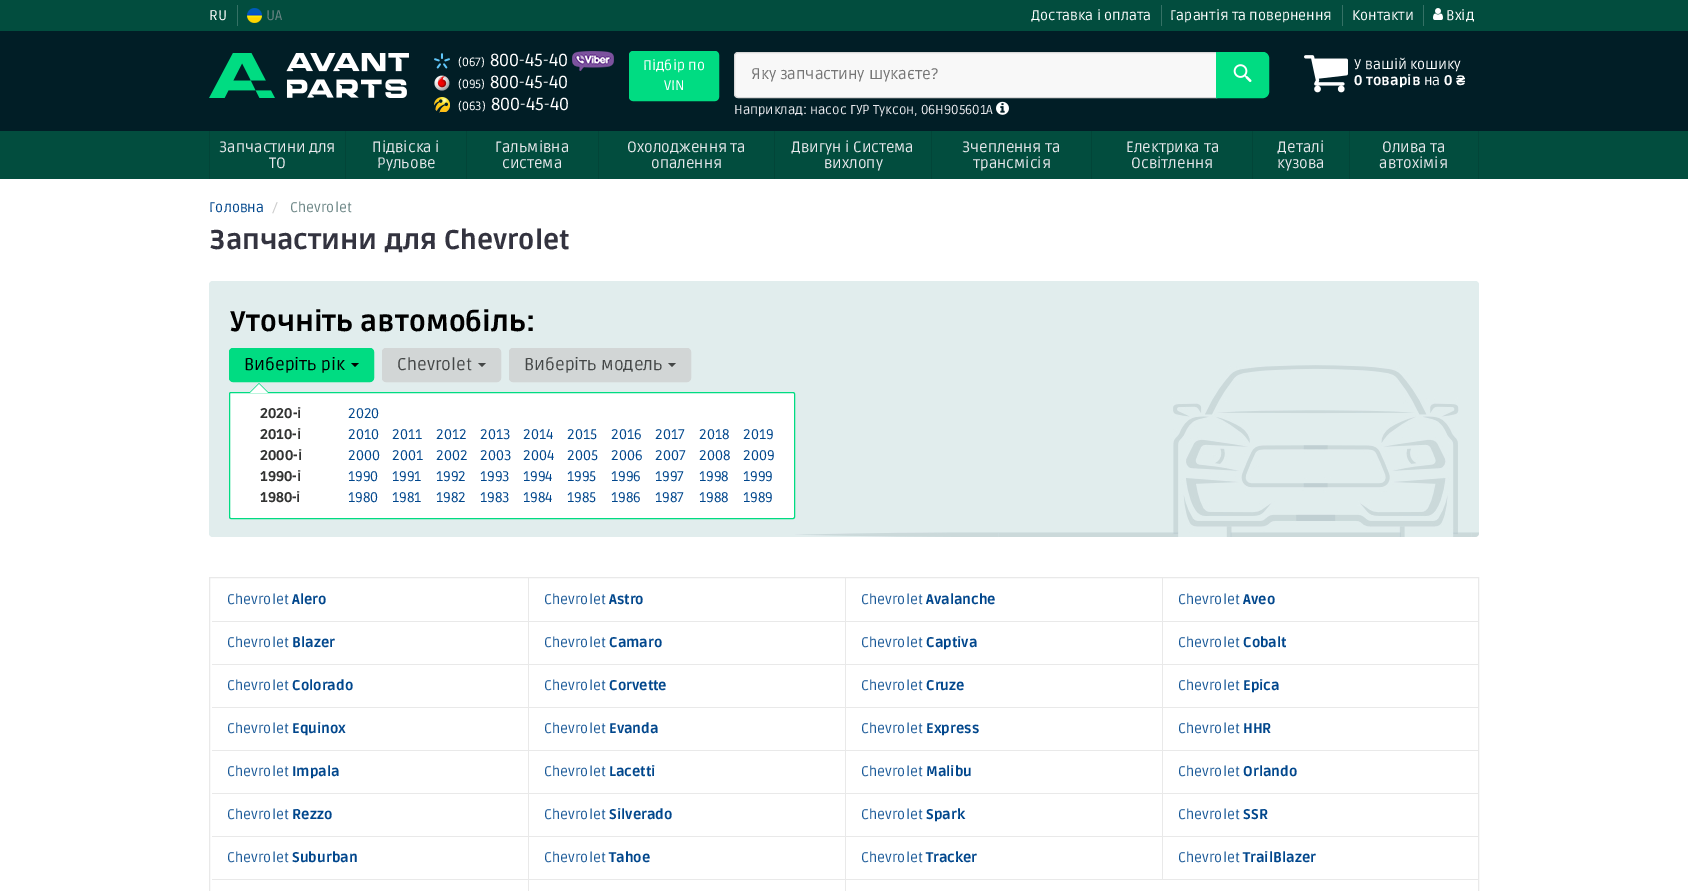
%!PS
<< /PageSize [1688 891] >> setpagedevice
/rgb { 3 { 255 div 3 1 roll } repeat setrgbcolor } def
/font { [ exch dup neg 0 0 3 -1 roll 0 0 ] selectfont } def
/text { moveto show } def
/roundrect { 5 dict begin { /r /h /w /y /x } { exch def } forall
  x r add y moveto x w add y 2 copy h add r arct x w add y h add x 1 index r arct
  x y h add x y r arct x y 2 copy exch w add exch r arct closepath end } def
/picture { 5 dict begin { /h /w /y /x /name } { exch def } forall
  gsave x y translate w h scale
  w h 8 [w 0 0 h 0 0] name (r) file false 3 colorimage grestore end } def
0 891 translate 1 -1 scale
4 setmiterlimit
255 255 255 rgb
0 0 1688 891 rectfill
1 30 38 rgb
0 31 1688 100 rectfill
2 77 62 rgb
0 0 1688 31 rectfill
53 113 101 rgb
237 5 1 21 rectfill
(img_01.rgb) 247 8 15 15 picture
1161 5 1 21 rectfill
1342 5 1 21 rectfill
1423 5 1 21 rectfill
(img_02.rgb) 1433 8 10 12 picture
(img_03.rgb) 209 53 200 45 picture
(img_04.rgb) 434 53 16 16 picture
(img_05.rgb) 572 51 42 20 picture
(img_06.rgb) 434 75 16 16 picture
(img_07.rgb) 434 97 16 16 picture
0 220 130 rgb
630 52 88 48 3 roundrect gsave fill grestore
2 setlinewidth
stroke
248 248 248 rgb
738 52.5 moveto 478.5 0 rlineto 0 45 rlineto -478.5 0 rlineto -2 0 -3.5 -1.5 -3.5 -3.5 rcurveto 0 -38 rlineto 0 -2 1.5 -3.5 3.5 -3.5 rcurveto closepath gsave fill grestore
216 216 216 rgb
1 setlinewidth
stroke
0 220 130 rgb
1216.5 52.5 moveto 46.5 0 rlineto 3 0 5.5 2.5 5.5 5.5 rcurveto 0 34 rlineto 0 3 -2.5 5.5 -5.5 5.5 rcurveto -46.5 0 rlineto closepath gsave fill grestore
stroke
(img_08.rgb) 1233 64 19 18 picture
(img_09.rgb) 996 101 13 14 picture
(img_10.rgb) 1304 55 44 38 picture
2 77 62 rgb
0 131 1688 48 rectfill
2 69 56 rgb
345 131 1 48 rectfill
209 131 1 48 rectfill
466 131 1 48 rectfill
598 131 1 48 rectfill
774 131 1 48 rectfill
931 131 1 48 rectfill
1091 131 1 48 rectfill
1252 131 1 48 rectfill
1349 131 1 48 rectfill
1478 131 1 48 rectfill
(img_11.rgb) 209 281 1270 256 picture
0 220 130 rgb
229.5 348.5 144 33 3.5 roundrect gsave fill grestore
stroke
0 0 0 rgb
351 363 moveto 8 0 rlineto -4 4 rlineto closepath fill
255 255 255 rgb
229.5 392.5 565 126 1.5 roundrect gsave fill grestore
0 220 130 rgb
stroke
269 393 moveto -20 0 rlineto 10 -10 rlineto closepath fill
255 255 255 rgb
268 393 moveto -18 0 rlineto 9 -9 rlineto closepath fill
210 214 214 rgb
382.5 348.5 118 33 3.5 roundrect gsave fill grestore
stroke
68 71 71 rgb
478 363 moveto 8 0 rlineto -4 4 rlineto closepath fill
210 214 214 rgb
509.5 348.5 181 33 3.5 roundrect gsave fill grestore
stroke
68 71 71 rgb
668 363 moveto 8 0 rlineto -4 4 rlineto closepath fill
233 233 233 rgb
209.5 577.5 1269 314 rectstroke
528 578 1 44 rectfill
212 621 317 1 rectfill
845 578 1 44 rectfill
529 621 317 1 rectfill
1162 578 1 44 rectfill
846 621 632 1 rectfill
528 621 1 44 rectfill
212 664 317 1 rectfill
845 621 1 44 rectfill
529 664 317 1 rectfill
1162 621 1 44 rectfill
846 664 632 1 rectfill
528 664 1 44 rectfill
212 707 317 1 rectfill
845 664 1 44 rectfill
529 707 317 1 rectfill
1162 664 1 44 rectfill
846 707 632 1 rectfill
528 707 1 44 rectfill
212 750 317 1 rectfill
845 707 1 44 rectfill
529 750 317 1 rectfill
1162 707 1 44 rectfill
846 750 632 1 rectfill
528 750 1 44 rectfill
212 793 317 1 rectfill
845 750 1 44 rectfill
529 793 317 1 rectfill
1162 750 1 44 rectfill
846 793 632 1 rectfill
528 793 1 44 rectfill
212 836 317 1 rectfill
845 793 1 44 rectfill
529 836 317 1 rectfill
1162 793 1 44 rectfill
846 836 632 1 rectfill
528 836 1 44 rectfill
212 879 317 1 rectfill
845 836 1 44 rectfill
529 879 317 1 rectfill
1162 836 1 44 rectfill
846 879 632 1 rectfill
528 879 1 12 rectfill
845 879 1 12 rectfill
/Ruda-Regular 14 font
255 255 255 rgb
(RU) 209 20 text
107 133 133 rgb
(UA) 266 20 text
255 255 255 rgb
(Доставка і оплата) 1031 20 text
(Гарантія та повернення) 1170 20 text
(Контакти) 1352 20 text
(Вхід) 1446 20 text
/Ruda-Regular 12 font
(\(067\)) 458 66 text
/Ruda-Regular 17.5 font
(800-45-40) 490 66 text
/Ruda-Regular 12 font
(\(095\)) 458 88 text
/Ruda-Regular 17.5 font
(800-45-40) 490 88 text
/Ruda-Regular 12 font
(\(063\)) 458 110 text
/Ruda-Regular 17.5 font
(800-45-40) 491 110 text
/Ruda-Regular 14 font
(Підбір по) 643 70 text
(VIN) 664 90 text
/Ruda-Regular 15.4 font
117 117 117 rgb
(Яку запчастину шукаєте?) 751 79 text
/Ruda-Regular 13 font
233 233 237 rgb
(Наприклад: насос ГУР Туксон, 06H905601A) 734 114 text
/Ruda-Regular 14 font
255 255 255 rgb
(У вашій кошику) 1354 69 text
/Ruda-ExtraBold 14 font
(0 товарів) 1354 85 text
/Ruda-Regular 14 font
(на) 1424 85 text
/Ruda-ExtraBold 14 font
(0) 1444 85 text
/LiberationSans-Bold 14 font
(₴) 1456 85 text
/Ruda-Regular 15 font
233 233 237 rgb
(Запчастини для) 219 152 text
(ТО) 269 168 text
(Підвіска і) 372 152 text
(Рульове) 377 168 text
(Гальмівна) 495 152 text
(система) 502 168 text
(Охолодження та) 627 152 text
(опалення) 651 168 text
(Двигун і Система) 791 152 text
(вихлопу) 824 168 text
(Зчеплення та) 962 152 text
(трансмісія) 973 168 text
(Електрика та) 1126 152 text
(Освітлення) 1131 168 text
(Деталі) 1277 152 text
(кузова) 1277 168 text
(Олива та) 1382 152 text
(автохімія) 1379 168 text
/Ruda-Regular 14 font
0 70 140 rgb
(Головна) 209 212 text
204 204 204 rgb
(/) 272 212 text
107 133 133 rgb
(Chevrolet) 290 212 text
/Ruda-ExtraBold 27 font
51 51 63 rgb
(Запчастини для Chevrolet) 209 249 text
/Ruda-ExtraBold 28 font
0 0 0 rgb
(Уточніть автомобіль:) 229 331 text
/Ruda-Regular 17 font
(Виберіть рік) 244 370 text
/Ruda-ExtraBold 14 font
50 51 50 rgb
(2020-і) 260 418 text
/Ruda-Regular 14 font
0 70 140 rgb
(2020) 348 418 text
/Ruda-ExtraBold 14 font
50 51 50 rgb
(2010-і) 260 439 text
/Ruda-Regular 14 font
0 70 140 rgb
(2010) 348 439 text
(2011) 392 439 text
(2012) 436 439 text
(2013) 480 439 text
(2014) 523 439 text
(2015) 567 439 text
(2016) 611 439 text
(2017) 655 439 text
(2018) 699 439 text
(2019) 743 439 text
/Ruda-ExtraBold 14 font
50 51 50 rgb
(2000-і) 260 460 text
/Ruda-Regular 14 font
0 70 140 rgb
(2000) 348 460 text
(2001) 392 460 text
(2002) 436 460 text
(2003) 480 460 text
(2004) 523 460 text
(2005) 567 460 text
(2006) 611 460 text
(2007) 655 460 text
(2008) 699 460 text
(2009) 743 460 text
/Ruda-ExtraBold 14 font
50 51 50 rgb
(1990-і) 260 481 text
/Ruda-Regular 14 font
0 70 140 rgb
(1990) 348 481 text
(1991) 392 481 text
(1992) 436 481 text
(1993) 480 481 text
(1994) 523 481 text
(1995) 567 481 text
(1996) 611 481 text
(1997) 655 481 text
(1998) 699 481 text
(1999) 743 481 text
/Ruda-ExtraBold 14 font
50 51 50 rgb
(1980-і) 260 502 text
/Ruda-Regular 14 font
0 70 140 rgb
(1980) 348 502 text
(1981) 392 502 text
(1982) 436 502 text
(1983) 480 502 text
(1984) 523 502 text
(1985) 567 502 text
(1986) 611 502 text
(1987) 655 502 text
(1988) 699 502 text
(1989) 743 502 text
/Ruda-Regular 17 font
68 71 71 rgb
(Chevrolet) 397 370 text
(Виберіть модель) 524 370 text
/Ruda-Regular 14 font
26 89 152 rgb
(Chevrolet) 227 604 text
/Ruda-ExtraBold 14 font
0 70 140 rgb
(Alero) 292 604 text
/Ruda-Regular 14 font
26 89 152 rgb
(Chevrolet) 544 604 text
/Ruda-ExtraBold 14 font
0 70 140 rgb
(Astro) 609 604 text
/Ruda-Regular 14 font
26 89 152 rgb
(Chevrolet) 861 604 text
/Ruda-ExtraBold 14 font
0 70 140 rgb
(Avalanche) 926 604 text
/Ruda-Regular 14 font
26 89 152 rgb
(Chevrolet) 1178 604 text
/Ruda-ExtraBold 14 font
0 70 140 rgb
(Aveo) 1243 604 text
/Ruda-Regular 14 font
26 89 152 rgb
(Chevrolet) 227 647 text
/Ruda-ExtraBold 14 font
0 70 140 rgb
(Blazer) 292 647 text
/Ruda-Regular 14 font
26 89 152 rgb
(Chevrolet) 544 647 text
/Ruda-ExtraBold 14 font
0 70 140 rgb
(Camaro) 609 647 text
/Ruda-Regular 14 font
26 89 152 rgb
(Chevrolet) 861 647 text
/Ruda-ExtraBold 14 font
0 70 140 rgb
(Captiva) 926 647 text
/Ruda-Regular 14 font
26 89 152 rgb
(Chevrolet) 1178 647 text
/Ruda-ExtraBold 14 font
0 70 140 rgb
(Cobalt) 1243 647 text
/Ruda-Regular 14 font
26 89 152 rgb
(Chevrolet) 227 690 text
/Ruda-ExtraBold 14 font
0 70 140 rgb
(Colorado) 292 690 text
/Ruda-Regular 14 font
26 89 152 rgb
(Chevrolet) 544 690 text
/Ruda-ExtraBold 14 font
0 70 140 rgb
(Corvette) 609 690 text
/Ruda-Regular 14 font
26 89 152 rgb
(Chevrolet) 861 690 text
/Ruda-ExtraBold 14 font
0 70 140 rgb
(Cruze) 926 690 text
/Ruda-Regular 14 font
26 89 152 rgb
(Chevrolet) 1178 690 text
/Ruda-ExtraBold 14 font
0 70 140 rgb
(Epica) 1243 690 text
/Ruda-Regular 14 font
26 89 152 rgb
(Chevrolet) 227 733 text
/Ruda-ExtraBold 14 font
0 70 140 rgb
(Equinox) 292 733 text
/Ruda-Regular 14 font
26 89 152 rgb
(Chevrolet) 544 733 text
/Ruda-ExtraBold 14 font
0 70 140 rgb
(Evanda) 609 733 text
/Ruda-Regular 14 font
26 89 152 rgb
(Chevrolet) 861 733 text
/Ruda-ExtraBold 14 font
0 70 140 rgb
(Express) 926 733 text
/Ruda-Regular 14 font
26 89 152 rgb
(Chevrolet) 1178 733 text
/Ruda-ExtraBold 14 font
0 70 140 rgb
(HHR) 1243 733 text
/Ruda-Regular 14 font
26 89 152 rgb
(Chevrolet) 227 776 text
/Ruda-ExtraBold 14 font
0 70 140 rgb
(Impala) 292 776 text
/Ruda-Regular 14 font
26 89 152 rgb
(Chevrolet) 544 776 text
/Ruda-ExtraBold 14 font
0 70 140 rgb
(Lacetti) 609 776 text
/Ruda-Regular 14 font
26 89 152 rgb
(Chevrolet) 861 776 text
/Ruda-ExtraBold 14 font
0 70 140 rgb
(Malibu) 926 776 text
/Ruda-Regular 14 font
26 89 152 rgb
(Chevrolet) 1178 776 text
/Ruda-ExtraBold 14 font
0 70 140 rgb
(Orlando) 1243 776 text
/Ruda-Regular 14 font
26 89 152 rgb
(Chevrolet) 227 819 text
/Ruda-ExtraBold 14 font
0 70 140 rgb
(Rezzo) 292 819 text
/Ruda-Regular 14 font
26 89 152 rgb
(Chevrolet) 544 819 text
/Ruda-ExtraBold 14 font
0 70 140 rgb
(Silverado) 609 819 text
/Ruda-Regular 14 font
26 89 152 rgb
(Chevrolet) 861 819 text
/Ruda-ExtraBold 14 font
0 70 140 rgb
(Spark) 926 819 text
/Ruda-Regular 14 font
26 89 152 rgb
(Chevrolet) 1178 819 text
/Ruda-ExtraBold 14 font
0 70 140 rgb
(SSR) 1243 819 text
/Ruda-Regular 14 font
26 89 152 rgb
(Chevrolet) 227 862 text
/Ruda-ExtraBold 14 font
0 70 140 rgb
(Suburban) 292 862 text
/Ruda-Regular 14 font
26 89 152 rgb
(Chevrolet) 544 862 text
/Ruda-ExtraBold 14 font
0 70 140 rgb
(Tahoe) 609 862 text
/Ruda-Regular 14 font
26 89 152 rgb
(Chevrolet) 861 862 text
/Ruda-ExtraBold 14 font
0 70 140 rgb
(Tracker) 926 862 text
/Ruda-Regular 14 font
26 89 152 rgb
(Chevrolet) 1178 862 text
/Ruda-ExtraBold 14 font
0 70 140 rgb
(TrailBlazer) 1243 862 text
showpage
